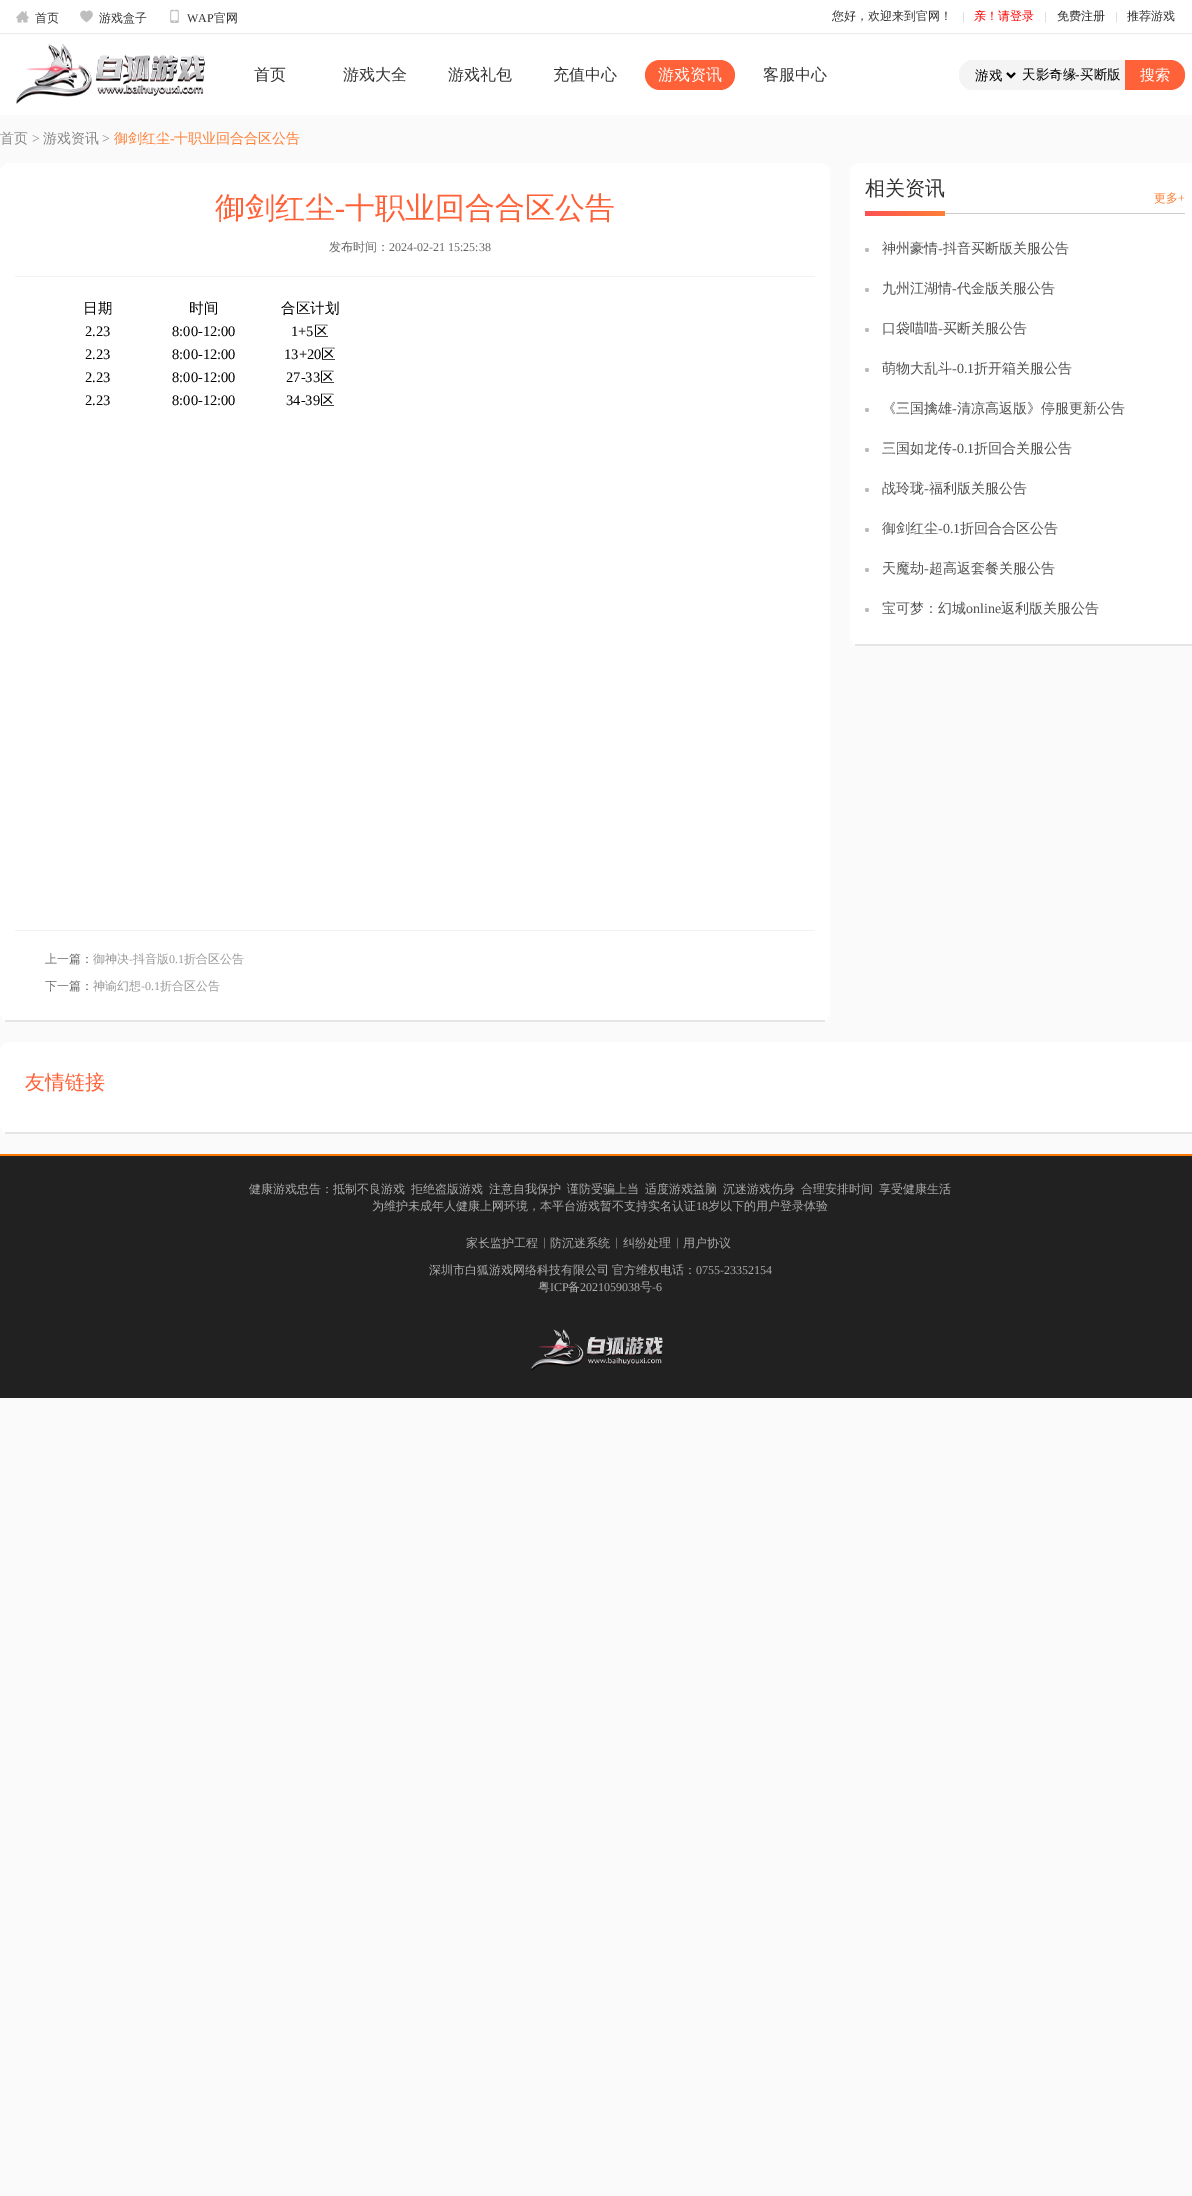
%!PS
<< /PageSize [1192 2196] >> setpagedevice
/rgb { 3 { 255 div 3 1 roll } repeat setrgbcolor } def
/font { [ exch dup neg 0 0 3 -1 roll 0 0 ] selectfont } def
/text { moveto show } def
/circle { newpath 0 360 arc closepath } def
/roundrect { 5 dict begin { /r /h /w /y /x } { exch def } forall
  x r add y moveto x w add y 2 copy h add r arct x w add y h add x 1 index r arct
  x y h add x y r arct x y 2 copy exch w add exch r arct closepath end } def
/picture { 5 dict begin { /h /w /y /x /name } { exch def } forall
  gsave x y translate w h scale
  w h 8 [w 0 0 h 0 0] name (r) file false 3 colorimage grestore end } def
0 2196 translate 1 -1 scale
4 setmiterlimit
250 250 250 rgb
0 0 1192 2196 rectfill
255 255 255 rgb
0 0 1192 33 rectfill
236 236 236 rgb
0 33 1192 1 rectfill
(img_01.rgb) 15 11 14 12 picture
(img_02.rgb) 80 10 13 13 picture
(img_03.rgb) 170 9 9 14 picture
255 255 255 rgb
0 35 1192 80 rectfill
(img_04.rgb) 16 44 189 60 picture
255 98 56 rgb
645 60 90 30 15 roundrect fill
244 244 244 rgb
959 60 226 30 15 roundrect fill
974 60 moveto 45 0 rlineto 0 30 rlineto -45 0 rlineto -8.5 0 -15 -6.5 -15 -15 rcurveto 0 -8.5 6.5 -15 15 -15 rcurveto closepath fill
0 0 0 rgb
2 setlinewidth
1007 73 moveto 4 4 rlineto 4 -4 rlineto stroke
255 98 56 rgb
1125 60 moveto 45 0 rlineto 8.5 0 15 6.5 15 15 rcurveto 0 8.5 -6.5 15 -15 15 rcurveto -45 0 rlineto closepath fill
255 255 255 rgb
0 163 830 859 10 roundrect fill
229 229 229 rgb
5 1020 820 2 rectfill
242 242 242 rgb
15 276 800 1 rectfill
15 930 800 1 rectfill
255 255 255 rgb
850 163 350 483 10 roundrect fill
229 229 229 rgb
855 644 337 2 rectfill
204 204 204 rgb
865 213 320 1 rectfill
gsave 865 211 80 5 2.5 roundrect clip newpath
<< /ShadingType 2 /ColorSpace /DeviceRGB /Coords [865 214 945 214] /Extend [true true] /Function << /FunctionType 2 /Domain [0 1] /C0 [0.992 0.318 0.322] /C1 [0.996 0.498 0.212] /N 1 >> >> shfill grestore
187 187 187 rgb
867 250 2 circle fill
867 290 2 circle fill
867 330 2 circle fill
867 370 2 circle fill
867 410 2 circle fill
867 450 2 circle fill
867 490 2 circle fill
867 530 2 circle fill
867 570 2 circle fill
867 610 2 circle fill
255 255 255 rgb
0 1042 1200 92 10 roundrect fill
229 229 229 rgb
5 1132 1187 2 rectfill
33 33 33 rgb
0 1156 1192 242 rectfill
255 120 0 rgb
0 1154 1192 2 rectfill
(img_05.rgb) 531 1329 132 42 picture
/WenQuanYiZenHei-Medium 12 font
51 51 51 rgb
(首页) 35 22 text
(游戏盒子) 99 22 text
/LiberationSerif-Regular 12 font
(WAP) 187 22 text
/WenQuanYiZenHei-Medium 12 font
(官网) 214 22 text
(您好，欢迎来到官网！) 832 20 text
/LiberationSerif-Regular 12 font
198 198 198 rgb
(|) 962 20 text
/WenQuanYiZenHei-Medium 12 font
255 0 0 rgb
(亲！请登录) 974 20 text
/LiberationSerif-Regular 12 font
198 198 198 rgb
(|) 1044 20 text
/WenQuanYiZenHei-Medium 12 font
51 51 51 rgb
(免费注册) 1057 20 text
/LiberationSerif-Regular 12 font
198 198 198 rgb
(|) 1115 20 text
/WenQuanYiZenHei-Medium 12 font
51 51 51 rgb
(推荐游戏) 1127 20 text
/WenQuanYiZenHei-Medium 16 font
(首页) 254 80 text
(游戏大全) 343 80 text
(游戏礼包) 448 80 text
(充值中心) 553 80 text
255 255 255 rgb
(游戏资讯) 658 80 text
51 51 51 rgb
(客服中心) 763 80 text
/WenQuanYiZenHei-Medium 13.5 font
0 0 0 rgb
(游戏) 975 80 text
(天影奇缘) 1022 79 text
/LiberationSerif-Regular 13.5 font
(-) 1075 79 text
/WenQuanYiZenHei-Medium 13.5 font
(买断版) 1080 79 text
/WenQuanYiZenHei-Medium 15 font
255 255 255 rgb
(搜索) 1140 80 text
/WenQuanYiZenHei-Medium 14 font
134 134 134 rgb
(首页) 0 143 text
/LiberationSerif-Regular 14 font
(>) 32 143 text
/WenQuanYiZenHei-Medium 14 font
(游戏资讯) 43 143 text
/LiberationSerif-Regular 14 font
(>) 102 143 text
/WenQuanYiZenHei-Medium 14 font
254 127 54 rgb
(御剑红尘) 114 143 text
/LiberationSerif-Regular 14 font
(-) 170 143 text
/WenQuanYiZenHei-Medium 14 font
(十职业回合合区公告) 174 143 text
/WenQuanYiZenHei-Medium 30 font
255 98 56 rgb
(御剑红尘) 215 218 text
/LiberationSerif-Regular 30 font
(-) 335 218 text
/WenQuanYiZenHei-Medium 30 font
(十职业回合合区公告) 345 218 text
/WenQuanYiZenHei-Medium 12 font
102 102 102 rgb
(发布时间：) 329 251 text
/LiberationSerif-Regular 12 font
(2024-02-21 15:25:38) 389 251 text
/WenQuanYiZenHei-Medium 14.5 font
0 0 0 rgb
(日期) 83 313 text
(时间) 189 313 text
(合区计划) 281 313 text
/LiberationSerif-Regular 14.5 font
(2.23) 85 336 text
(8:00-12:00) 172 336 text
(1+5) 291 336 text
/WenQuanYiZenHei-Medium 14.5 font
(区) 314 336 text
/LiberationSerif-Regular 14.5 font
(2.23) 85 359 text
(8:00-12:00) 172 359 text
(13+20) 284 359 text
/WenQuanYiZenHei-Medium 14.5 font
(区) 321 359 text
/LiberationSerif-Regular 14.5 font
(2.23) 85 382 text
(8:00-12:00) 172 382 text
(27-33) 286 382 text
/WenQuanYiZenHei-Medium 14.5 font
(区) 320 382 text
/LiberationSerif-Regular 14.5 font
(2.23) 85 405 text
(8:00-12:00) 172 405 text
(34-39) 286 405 text
/WenQuanYiZenHei-Medium 14.5 font
(区) 320 405 text
/WenQuanYiZenHei-Medium 12 font
102 102 102 rgb
(上一篇：) 45 963 text
153 153 153 rgb
(御神决) 93 963 text
/LiberationSerif-Regular 12 font
(-) 129 963 text
/WenQuanYiZenHei-Medium 12 font
(抖音版) 133 963 text
/LiberationSerif-Regular 12 font
(0.1) 169 963 text
/WenQuanYiZenHei-Medium 12 font
(折合区公告) 184 963 text
102 102 102 rgb
(下一篇：) 45 990 text
153 153 153 rgb
(神谕幻想) 93 990 text
/LiberationSerif-Regular 12 font
(-0.1) 141 990 text
/WenQuanYiZenHei-Medium 12 font
(折合区公告) 160 990 text
/WenQuanYiZenHei-Medium 20 font
51 51 51 rgb
(相关资讯) 865 195 text
/WenQuanYiZenHei-Medium 12 font
254 127 54 rgb
(更多) 1154 202 text
/LiberationSerif-Regular 12 font
(+) 1178 202 text
/WenQuanYiZenHei-Medium 14 font
82 82 82 rgb
(神州豪情) 882 253 text
/LiberationSerif-Regular 14 font
(-) 938 253 text
/WenQuanYiZenHei-Medium 14 font
(抖音买断版关服公告) 943 253 text
(九州江湖情) 882 293 text
/LiberationSerif-Regular 14 font
(-) 952 293 text
/WenQuanYiZenHei-Medium 14 font
(代金版关服公告) 957 293 text
(口袋喵喵) 882 333 text
/LiberationSerif-Regular 14 font
(-) 938 333 text
/WenQuanYiZenHei-Medium 14 font
(买断关服公告) 943 333 text
(萌物大乱斗) 882 373 text
/LiberationSerif-Regular 14 font
(-0.1) 952 373 text
/WenQuanYiZenHei-Medium 14 font
(折开箱关服公告) 974 373 text
(《三国擒雄) 882 413 text
/LiberationSerif-Regular 14 font
(-) 952 413 text
/WenQuanYiZenHei-Medium 14 font
(清凉高返版》停服更新公告) 957 413 text
(三国如龙传) 882 453 text
/LiberationSerif-Regular 14 font
(-0.1) 952 453 text
/WenQuanYiZenHei-Medium 14 font
(折回合关服公告) 974 453 text
(战玲珑) 882 493 text
/LiberationSerif-Regular 14 font
(-) 924 493 text
/WenQuanYiZenHei-Medium 14 font
(福利版关服公告) 929 493 text
(御剑红尘) 882 533 text
/LiberationSerif-Regular 14 font
(-0.1) 938 533 text
/WenQuanYiZenHei-Medium 14 font
(折回合合区公告) 960 533 text
(天魔劫) 882 573 text
/LiberationSerif-Regular 14 font
(-) 924 573 text
/WenQuanYiZenHei-Medium 14 font
(超高返套餐关服公告) 929 573 text
(宝可梦：幻城) 882 613 text
/LiberationSerif-Regular 14 font
(online) 966 613 text
/WenQuanYiZenHei-Medium 14 font
(返利版关服公告) 1001 613 text
/WenQuanYiZenHei-Medium 20 font
255 98 56 rgb
(友情链接) 25 1089 text
/WenQuanYiZenHei-Medium 12 font
172 172 172 rgb
(健康游戏忠告：抵制不良游戏) 249 1193 text
(拒绝盗版游戏) 411 1193 text
(注意自我保护) 489 1193 text
(谨防受骗上当) 567 1193 text
(适度游戏益脑) 645 1193 text
(沉迷游戏伤身) 723 1193 text
(合理安排时间) 801 1193 text
(享受健康生活) 879 1193 text
(为维护未成年人健康上网环境，本平台游戏暂不支持实名认证) 372 1210 text
/LiberationSerif-Regular 12 font
(18) 696 1210 text
/WenQuanYiZenHei-Medium 12 font
(岁以下的用户登录体验) 708 1210 text
(家长监护工程) 466 1247 text
/LiberationSerif-Regular 12 font
(|) 543 1246 text
/WenQuanYiZenHei-Medium 12 font
(防沉迷系统) 550 1247 text
/LiberationSerif-Regular 12 font
(|) 615 1246 text
/WenQuanYiZenHei-Medium 12 font
(纠纷处理) 623 1247 text
/LiberationSerif-Regular 12 font
(|) 676 1246 text
/WenQuanYiZenHei-Medium 12 font
(用户协议) 683 1247 text
429 1274 moveto -1 0 32 (深圳市白狐游戏网络科技有限公司 官方维权电话：) widthshow
/LiberationSerif-Regular 12 font
(0755-23352154) 696 1274 text
/WenQuanYiZenHei-Medium 12 font
(粤) 538 1291 text
/LiberationSerif-Regular 12 font
(ICP) 550 1291 text
/WenQuanYiZenHei-Medium 12 font
(备) 568 1291 text
/LiberationSerif-Regular 12 font
(2021059038) 580 1291 text
/WenQuanYiZenHei-Medium 12 font
(号) 640 1291 text
/LiberationSerif-Regular 12 font
(-6) 652 1291 text
showpage
